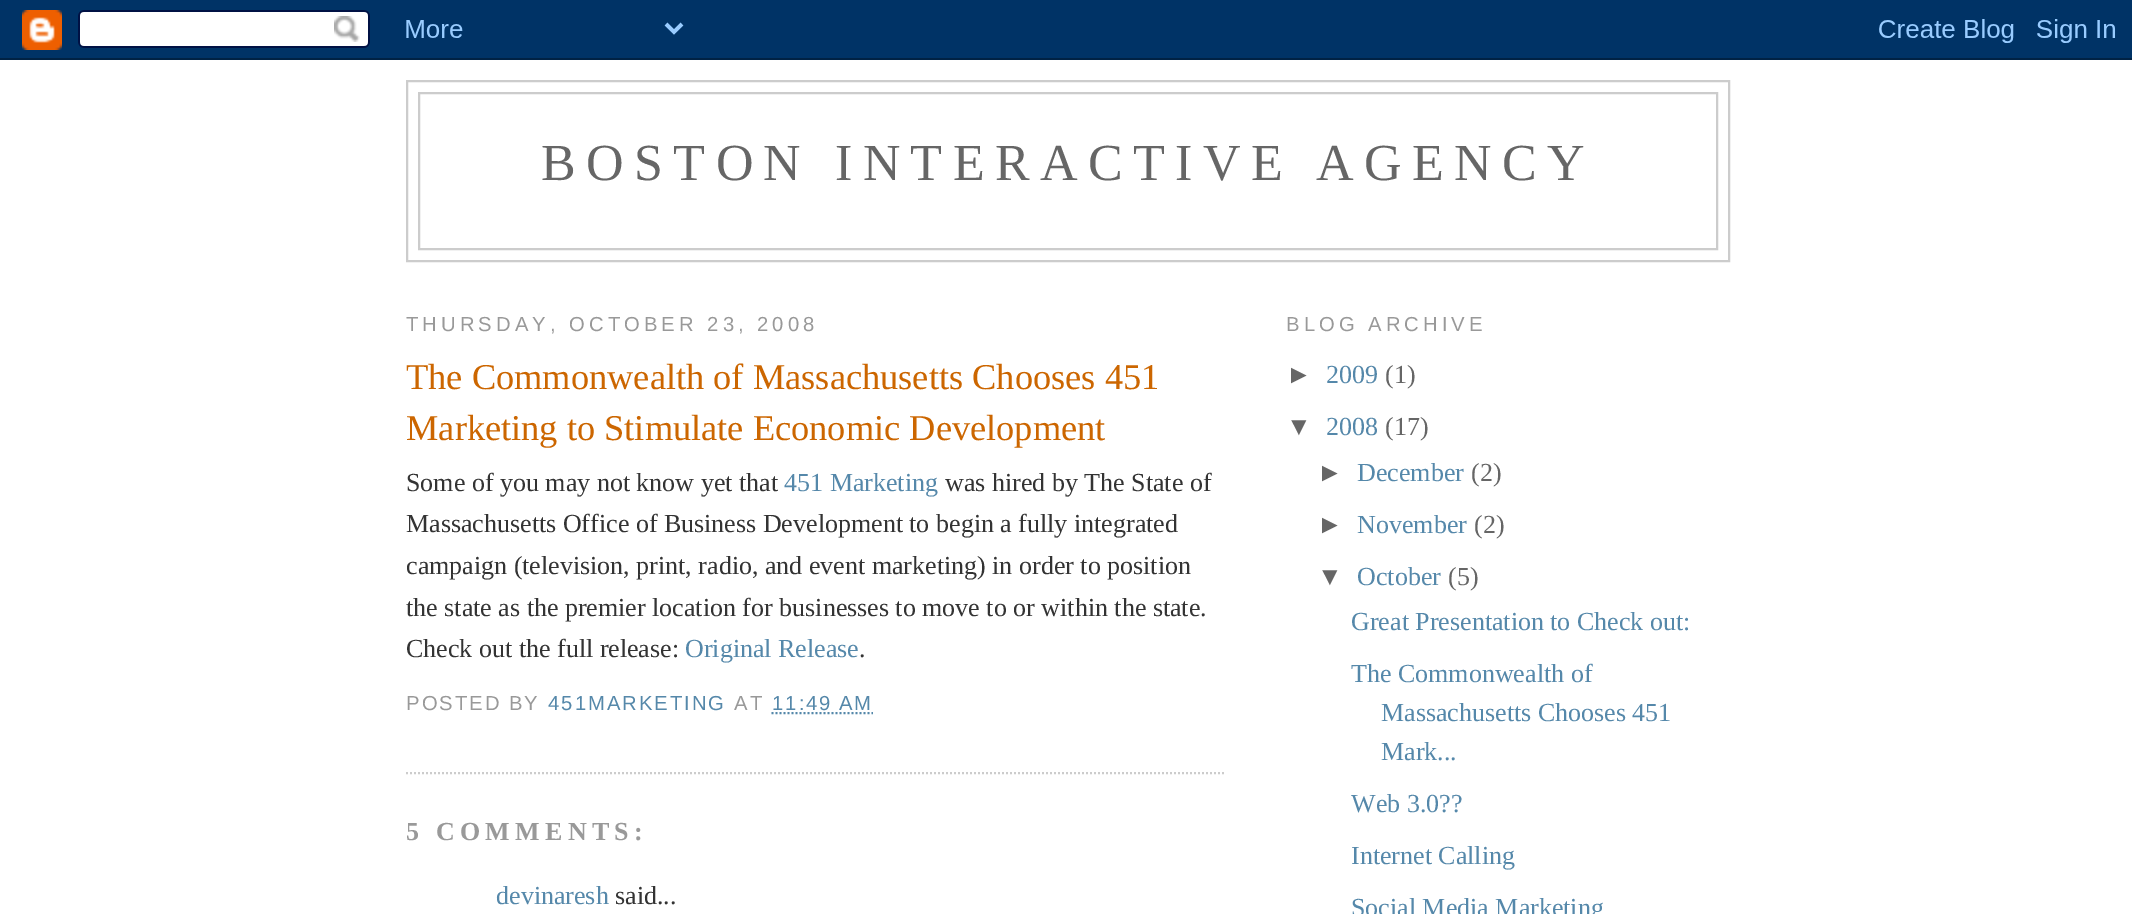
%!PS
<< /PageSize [2132 914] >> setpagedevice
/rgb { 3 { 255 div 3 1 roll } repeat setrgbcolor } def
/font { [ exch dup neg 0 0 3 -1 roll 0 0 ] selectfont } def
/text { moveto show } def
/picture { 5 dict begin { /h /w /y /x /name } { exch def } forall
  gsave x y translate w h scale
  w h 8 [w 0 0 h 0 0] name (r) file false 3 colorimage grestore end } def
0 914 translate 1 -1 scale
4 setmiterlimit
255 255 255 rgb
0 0 2132 914 rectfill
(img_01.rgb) 0 0 2132 60 picture
204 204 204 rgb
2 setlinewidth
407 81 1322 180 rectstroke
419 93 1298 156 rectstroke
[2 2] 0 setdash
406 773 moveto 820 0 rlineto stroke
85 136 170 rgb
771.5 713 moveto 101.5 0 rlineto stroke
/LiberationSerif-Regular 52 font
102 102 102 rgb
541 180 moveto 10.4 0 (BOSTON INTERACTIVE AGENCY) ashow
/LiberationSans-Regular 20.25 font
153 153 153 rgb
406 331 moveto 4.05 0 (THURSDAY, OCTOBER 23, 2008) ashow
/LiberationSerif-Regular 36.4 font
204 102 0 rgb
(The Commonwealth of Massachusetts Chooses 451) 406 389 text
(Marketing to Stimulate Economic Development) 406 440 text
/LiberationSerif-Regular 26 font
51 51 51 rgb
(Some of you may not know yet that) 406 491 text
85 136 170 rgb
(451 Marketing) 784 491 text
51 51 51 rgb
(was hired by The State of) 945 491 text
(Massachusetts Office of Business Development to begin a fully integrated) 406 532 text
(campaign \(television, print, radio, and event marketing\) in order to position) 406 574 text
(the state as the premier location for businesses to move to or within the state.) 406 616 text
(Check out the full release:) 406 657 text
85 136 170 rgb
(Original Release) 685 657 text
51 51 51 rgb
(.) 859 657 text
/LiberationSans-Regular 20.25 font
153 153 153 rgb
406 710 moveto 2 0 (POSTED BY) ashow
85 136 170 rgb
548 710 moveto 2 0 (451MARKETING) ashow
153 153 153 rgb
734 710 moveto 2 0 (AT) ashow
85 136 170 rgb
772 710 moveto 2 0 (11:49 AM) ashow
/LiberationSerif-Bold 26 font
153 153 153 rgb
406 840 moveto 5.25 0 (5 COMMENTS:) ashow
/LiberationSerif-Regular 26 font
85 136 170 rgb
(devinaresh) 496 904 text
51 51 51 rgb
(said...) 615 904 text
/LiberationSans-Regular 20.25 font
153 153 153 rgb
1286 331 moveto 4.05 0 (BLOG ARCHIVE) ashow
/LiberationSans-Regular 26 font
102 102 102 rgb
(►) 1286 383 text
/LiberationSerif-Regular 26 font
85 136 170 rgb
(2009) 1326 383 text
102 102 102 rgb
(\(1\)) 1385 383 text
/LiberationSans-Regular 26 font
(▼) 1286 435 text
/LiberationSerif-Regular 26 font
85 136 170 rgb
(2008) 1326 435 text
102 102 102 rgb
(\(17\)) 1385 435 text
/LiberationSans-Regular 26 font
(►) 1317 481 text
/LiberationSerif-Regular 26 font
85 136 170 rgb
(December) 1357 481 text
102 102 102 rgb
(\(2\)) 1471 481 text
/LiberationSans-Regular 26 font
(►) 1317 533 text
/LiberationSerif-Regular 26 font
85 136 170 rgb
(November) 1357 533 text
102 102 102 rgb
(\(2\)) 1474 533 text
/LiberationSans-Regular 26 font
(▼) 1317 585 text
/LiberationSerif-Regular 26 font
85 136 170 rgb
(October) 1357 585 text
102 102 102 rgb
(\(5\)) 1448 585 text
85 136 170 rgb
(Great Presentation to Check out:) 1351 630 text
(The Commonwealth of) 1351 682 text
(Massachusetts Chooses 451) 1381 721 text
(Mark...) 1381 760 text
(Web 3.0??) 1351 812 text
(Internet Calling) 1351 864 text
(Social Media Marketing) 1351 916 text
showpage
